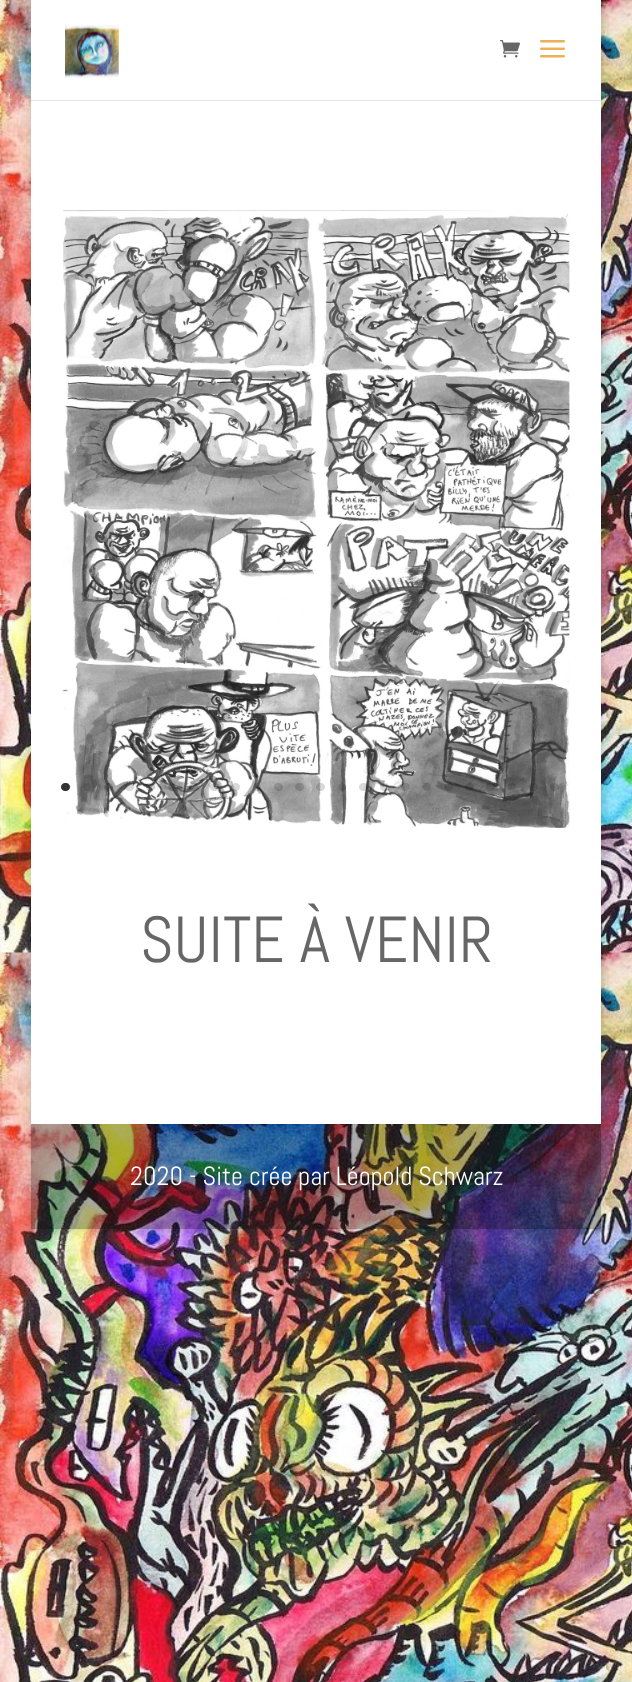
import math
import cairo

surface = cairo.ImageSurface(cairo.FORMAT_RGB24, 632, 1682)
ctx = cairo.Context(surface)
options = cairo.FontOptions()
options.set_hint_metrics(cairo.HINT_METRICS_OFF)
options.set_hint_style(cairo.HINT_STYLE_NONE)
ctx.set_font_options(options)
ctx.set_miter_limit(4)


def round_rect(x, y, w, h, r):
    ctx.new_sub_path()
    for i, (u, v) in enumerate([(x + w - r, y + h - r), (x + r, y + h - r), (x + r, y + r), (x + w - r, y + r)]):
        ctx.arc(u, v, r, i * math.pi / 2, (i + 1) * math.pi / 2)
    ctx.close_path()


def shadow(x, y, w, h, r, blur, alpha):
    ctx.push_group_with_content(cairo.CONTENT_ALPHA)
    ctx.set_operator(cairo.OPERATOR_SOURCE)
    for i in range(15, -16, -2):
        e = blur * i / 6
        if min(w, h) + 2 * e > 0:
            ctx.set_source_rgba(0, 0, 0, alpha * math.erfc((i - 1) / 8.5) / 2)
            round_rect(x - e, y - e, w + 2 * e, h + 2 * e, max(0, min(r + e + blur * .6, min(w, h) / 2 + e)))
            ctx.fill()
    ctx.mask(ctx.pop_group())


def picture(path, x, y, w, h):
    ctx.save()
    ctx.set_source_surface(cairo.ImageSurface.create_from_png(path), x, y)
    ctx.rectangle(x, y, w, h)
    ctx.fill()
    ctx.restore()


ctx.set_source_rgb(1, 1, 1)
ctx.paint()
picture("img1.png", 0, 0, 632, 1682)
ctx.save()
ctx.set_fill_rule(cairo.FILL_RULE_EVEN_ODD)
ctx.new_path()
ctx.move_to(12, 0)
ctx.line_to(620, 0)
ctx.line_to(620, 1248)
ctx.line_to(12, 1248)
ctx.close_path()
ctx.move_to(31, 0)
ctx.line_to(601, 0)
ctx.line_to(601, 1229)
ctx.line_to(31, 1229)
ctx.close_path()
ctx.clip()
ctx.set_source_rgb(0, 0, 0)
shadow(31, 0, 570, 1229, 0, 6, 0.2)
ctx.restore()
ctx.set_source_rgb(0.902, 0.902, 0.902)
ctx.new_path()
ctx.move_to(31, 1)
ctx.line_to(31, 101)
ctx.line_to(601, 101)
ctx.line_to(601, 100)
ctx.line_to(31, 100)
ctx.close_path()
ctx.fill()
ctx.set_source_rgb(1, 1, 1)
ctx.rectangle(31, 0, 570, 100)
ctx.fill()
picture("img2.png", 65, 25, 54, 53)
picture("img3.png", 500, 40, 20, 18)
picture("img4.png", 540, 40, 25, 18)
ctx.rectangle(31, 101, 570, 1023)
ctx.fill()
picture("img5.png", 63, 210, 507, 618)
ctx.set_source_rgb(0.2, 0.2, 0.2)
round_rect(61, 783, 9, 8, 4)
ctx.fill()
ctx.set_source_rgba(0, 0, 0, 0.15)
ctx.arc(87, 787, 4, 0, 2 * math.pi)
ctx.fill()
round_rect(104, 783, 9, 8, 4)
ctx.fill()
round_rect(125, 783, 9, 8, 4)
ctx.fill()
round_rect(146, 783, 9, 8, 4)
ctx.fill()
ctx.arc(172, 787, 4, 0, 2 * math.pi)
ctx.fill()
round_rect(189, 783, 9, 8, 4)
ctx.fill()
round_rect(210, 783, 9, 8, 4)
ctx.fill()
round_rect(231, 783, 9, 8, 4)
ctx.fill()
ctx.arc(257, 787, 4, 0, 2 * math.pi)
ctx.fill()
round_rect(274, 783, 9, 8, 4)
ctx.fill()
round_rect(295, 783, 9, 8, 4)
ctx.fill()
round_rect(316, 783, 9, 8, 4)
ctx.fill()
ctx.arc(342, 787, 4, 0, 2 * math.pi)
ctx.fill()
round_rect(359, 783, 9, 8, 4)
ctx.fill()
round_rect(380, 783, 9, 8, 4)
ctx.fill()
round_rect(401, 783, 9, 8, 4)
ctx.fill()
ctx.arc(427, 787, 4, 0, 2 * math.pi)
ctx.fill()
round_rect(444, 783, 9, 8, 4)
ctx.fill()
round_rect(465, 783, 9, 8, 4)
ctx.fill()
round_rect(486, 783, 9, 8, 4)
ctx.fill()
ctx.arc(512, 787, 4, 0, 2 * math.pi)
ctx.fill()
round_rect(529, 783, 9, 8, 4)
ctx.fill()
round_rect(550, 783, 9, 8, 4)
ctx.fill()
ctx.select_font_face("Abel")
ctx.set_font_size(65)
ctx.set_source_rgb(0.4, 0.4, 0.4)
ctx.move_to(140, 962)
ctx.show_text("SUITE À VENIR")
ctx.set_source_rgba(0, 0, 0, 0.32)
ctx.rectangle(31, 1124, 570, 105)
ctx.fill()
ctx.set_font_size(26.25)
ctx.set_source_rgb(1, 1, 1)
ctx.move_to(130, 1185)
ctx.show_text("2020 - Site crée par Léopold Schwarz")
surface.write_to_png("page.png")
